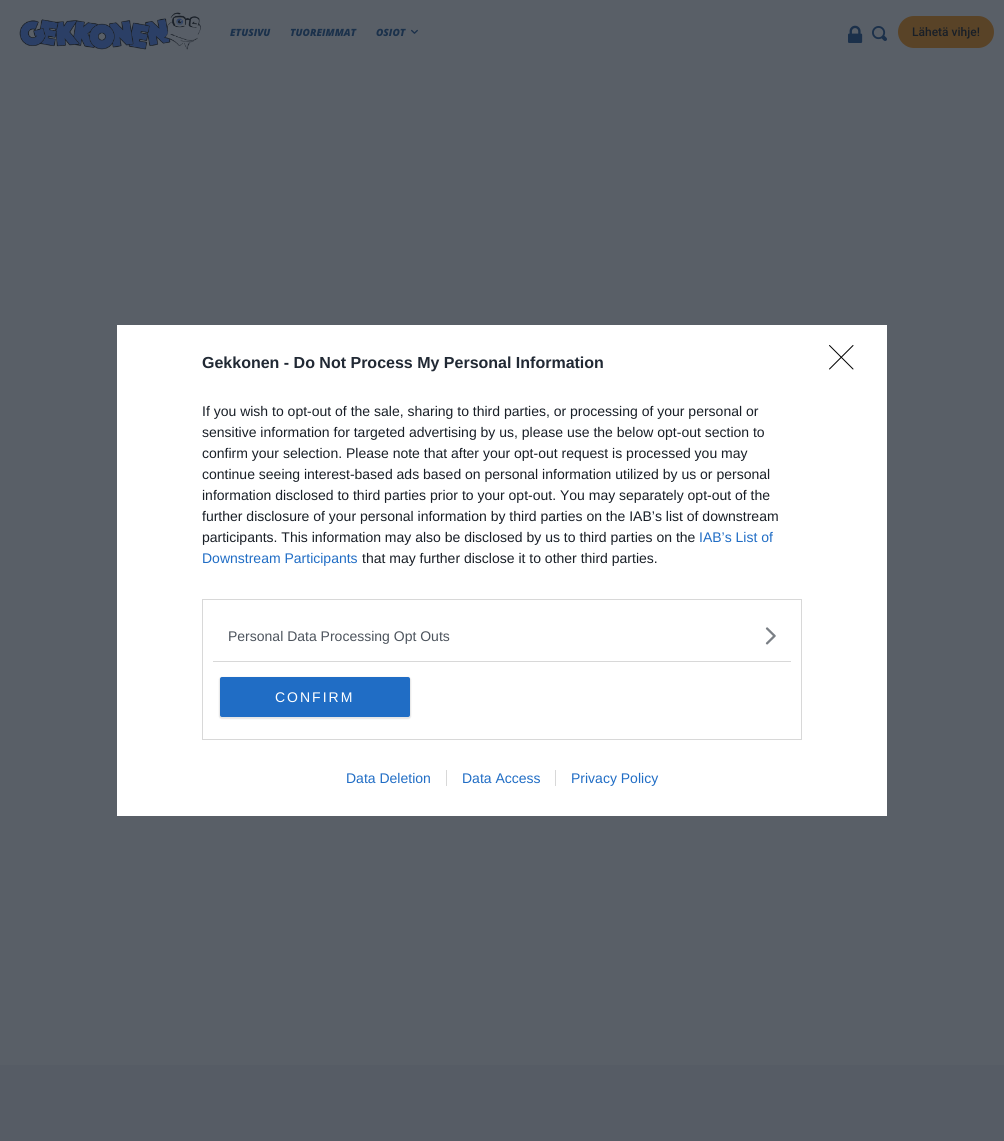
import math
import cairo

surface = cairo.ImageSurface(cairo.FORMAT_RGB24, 1004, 1141)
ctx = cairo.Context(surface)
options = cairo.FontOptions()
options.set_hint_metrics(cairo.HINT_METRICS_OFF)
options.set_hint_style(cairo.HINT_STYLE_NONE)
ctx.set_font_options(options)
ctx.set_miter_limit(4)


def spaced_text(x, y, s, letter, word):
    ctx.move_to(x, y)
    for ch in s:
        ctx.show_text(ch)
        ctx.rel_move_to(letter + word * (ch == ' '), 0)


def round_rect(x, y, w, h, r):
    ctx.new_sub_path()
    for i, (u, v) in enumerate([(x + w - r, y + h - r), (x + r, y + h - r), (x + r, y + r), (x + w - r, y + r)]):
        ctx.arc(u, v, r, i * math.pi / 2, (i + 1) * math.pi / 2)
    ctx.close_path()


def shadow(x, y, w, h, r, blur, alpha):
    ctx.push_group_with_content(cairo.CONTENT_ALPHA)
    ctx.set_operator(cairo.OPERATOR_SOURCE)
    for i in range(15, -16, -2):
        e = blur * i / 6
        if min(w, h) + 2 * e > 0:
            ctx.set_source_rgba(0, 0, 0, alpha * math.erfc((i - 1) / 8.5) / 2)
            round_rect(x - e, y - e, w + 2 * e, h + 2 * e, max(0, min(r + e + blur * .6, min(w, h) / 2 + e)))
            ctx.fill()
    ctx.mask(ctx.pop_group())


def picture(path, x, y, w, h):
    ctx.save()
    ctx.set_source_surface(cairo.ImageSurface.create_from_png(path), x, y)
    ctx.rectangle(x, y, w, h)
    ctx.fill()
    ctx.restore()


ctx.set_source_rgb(0.337, 0.361, 0.396)
ctx.paint()
ctx.set_source_rgb(0.349, 0.373, 0.404)
ctx.rectangle(0, 0, 1004, 1065)
ctx.fill()
picture("img1.png", 19, 12, 182, 38)
ctx.select_font_face("Open Sans ExtraBold", cairo.FONT_SLANT_ITALIC)
ctx.set_font_size(10)
ctx.set_source_rgb(0.106, 0.192, 0.294)
ctx.move_to(230, 36)
ctx.show_text("ETUSIVU")
ctx.move_to(290, 36)
ctx.show_text("TUOREIMMAT")
ctx.move_to(376, 36)
ctx.show_text("OSIOT")
picture("img2.png", 411, 29, 7, 5)
picture("img3.png", 848, 25, 15, 18)
picture("img4.png", 872, 26, 15, 15)
ctx.set_source_rgb(0.349, 0.263, 0.153)
round_rect(898, 16, 96, 32, 16)
ctx.fill()
ctx.select_font_face("Roboto Medium")
ctx.set_font_size(12)
ctx.set_source_rgb(0.098, 0.122, 0.153)
ctx.move_to(912, 36)
ctx.show_text("Lähetä vihje!")
ctx.set_source_rgb(1, 1, 1)
ctx.rectangle(117, 325, 770, 491)
ctx.fill()
ctx.select_font_face("Liberation Sans", cairo.FONT_SLANT_NORMAL, cairo.FONT_WEIGHT_BOLD)
ctx.set_font_size(16)
ctx.set_source_rgb(0.129, 0.161, 0.204)
ctx.move_to(202, 368)
ctx.show_text("Gekkonen - Do Not Process My Personal Information")
ctx.select_font_face("Liberation Sans")
ctx.set_font_size(14)
ctx.set_source_rgb(0.098, 0.122, 0.153)
ctx.move_to(202, 416)
ctx.show_text("If you wish to opt-out of the sale, sharing to third parties, or processing of your personal or")
ctx.move_to(202, 437)
ctx.show_text("sensitive information for targeted advertising by us, please use the below opt-out section to")
ctx.move_to(202, 458)
ctx.show_text("confirm your selection. Please note that after your opt-out request is processed you may")
ctx.move_to(202, 479)
ctx.show_text("continue seeing interest-based ads based on personal information utilized by us or personal")
ctx.move_to(202, 500)
ctx.show_text("information disclosed to third parties prior to your opt-out. You may separately opt-out of the")
ctx.move_to(202, 521)
ctx.show_text("further disclosure of your personal information by third parties on the IAB’s list of downstream")
ctx.move_to(202, 542)
ctx.show_text("participants. This information may also be disclosed by us to third parties on the")
ctx.set_source_rgb(0.125, 0.427, 0.773)
ctx.move_to(699, 542)
ctx.show_text("IAB’s List of")
ctx.move_to(202, 563)
ctx.show_text("Downstream Participants")
ctx.set_source_rgb(0.098, 0.122, 0.153)
ctx.move_to(362, 563)
ctx.show_text("that may further disclose it to other third parties.")
ctx.rectangle(202.5, 599.5, 599, 140)
ctx.set_source_rgb(0.847, 0.847, 0.847)
ctx.set_line_width(1)
ctx.stroke()
ctx.rectangle(213, 661, 578, 1)
ctx.fill()
ctx.set_source_rgb(0.302, 0.329, 0.365)
ctx.move_to(228, 641)
ctx.show_text("Personal Data Processing Opt Outs")
picture("img5.png", 765, 627, 11, 18)
ctx.set_source_rgb(0, 0, 0)
shadow(219, 677, 192, 42, 3, 0.5, 0.1)
ctx.set_source_rgb(0.125, 0.427, 0.773)
round_rect(220, 677, 190, 40, 2)
ctx.fill()
ctx.set_source_rgb(1, 1, 1)
spaced_text(275, 702, "CONFIRM", 2, 0)
ctx.new_path()
ctx.move_to(829.5, 345.5)
ctx.line_to(853, 369)
ctx.move_to(853, 345.5)
ctx.line_to(829.5, 369)
ctx.set_source_rgb(0, 0, 0)
ctx.set_line_cap(cairo.LINE_CAP_ROUND)
ctx.set_line_join(cairo.LINE_JOIN_ROUND)
ctx.stroke()
ctx.set_source_rgb(0.125, 0.427, 0.773)
ctx.move_to(346, 783)
ctx.show_text("Data Deletion")
ctx.move_to(462, 783)
ctx.show_text("Data Access")
ctx.set_source_rgb(0.847, 0.847, 0.847)
ctx.rectangle(446, 770, 1, 16)
ctx.fill()
ctx.set_source_rgb(0.125, 0.427, 0.773)
ctx.move_to(571, 783)
ctx.show_text("Privacy Policy")
ctx.set_source_rgb(0.847, 0.847, 0.847)
ctx.rectangle(555, 770, 1, 16)
ctx.fill()
surface.write_to_png("page.png")
